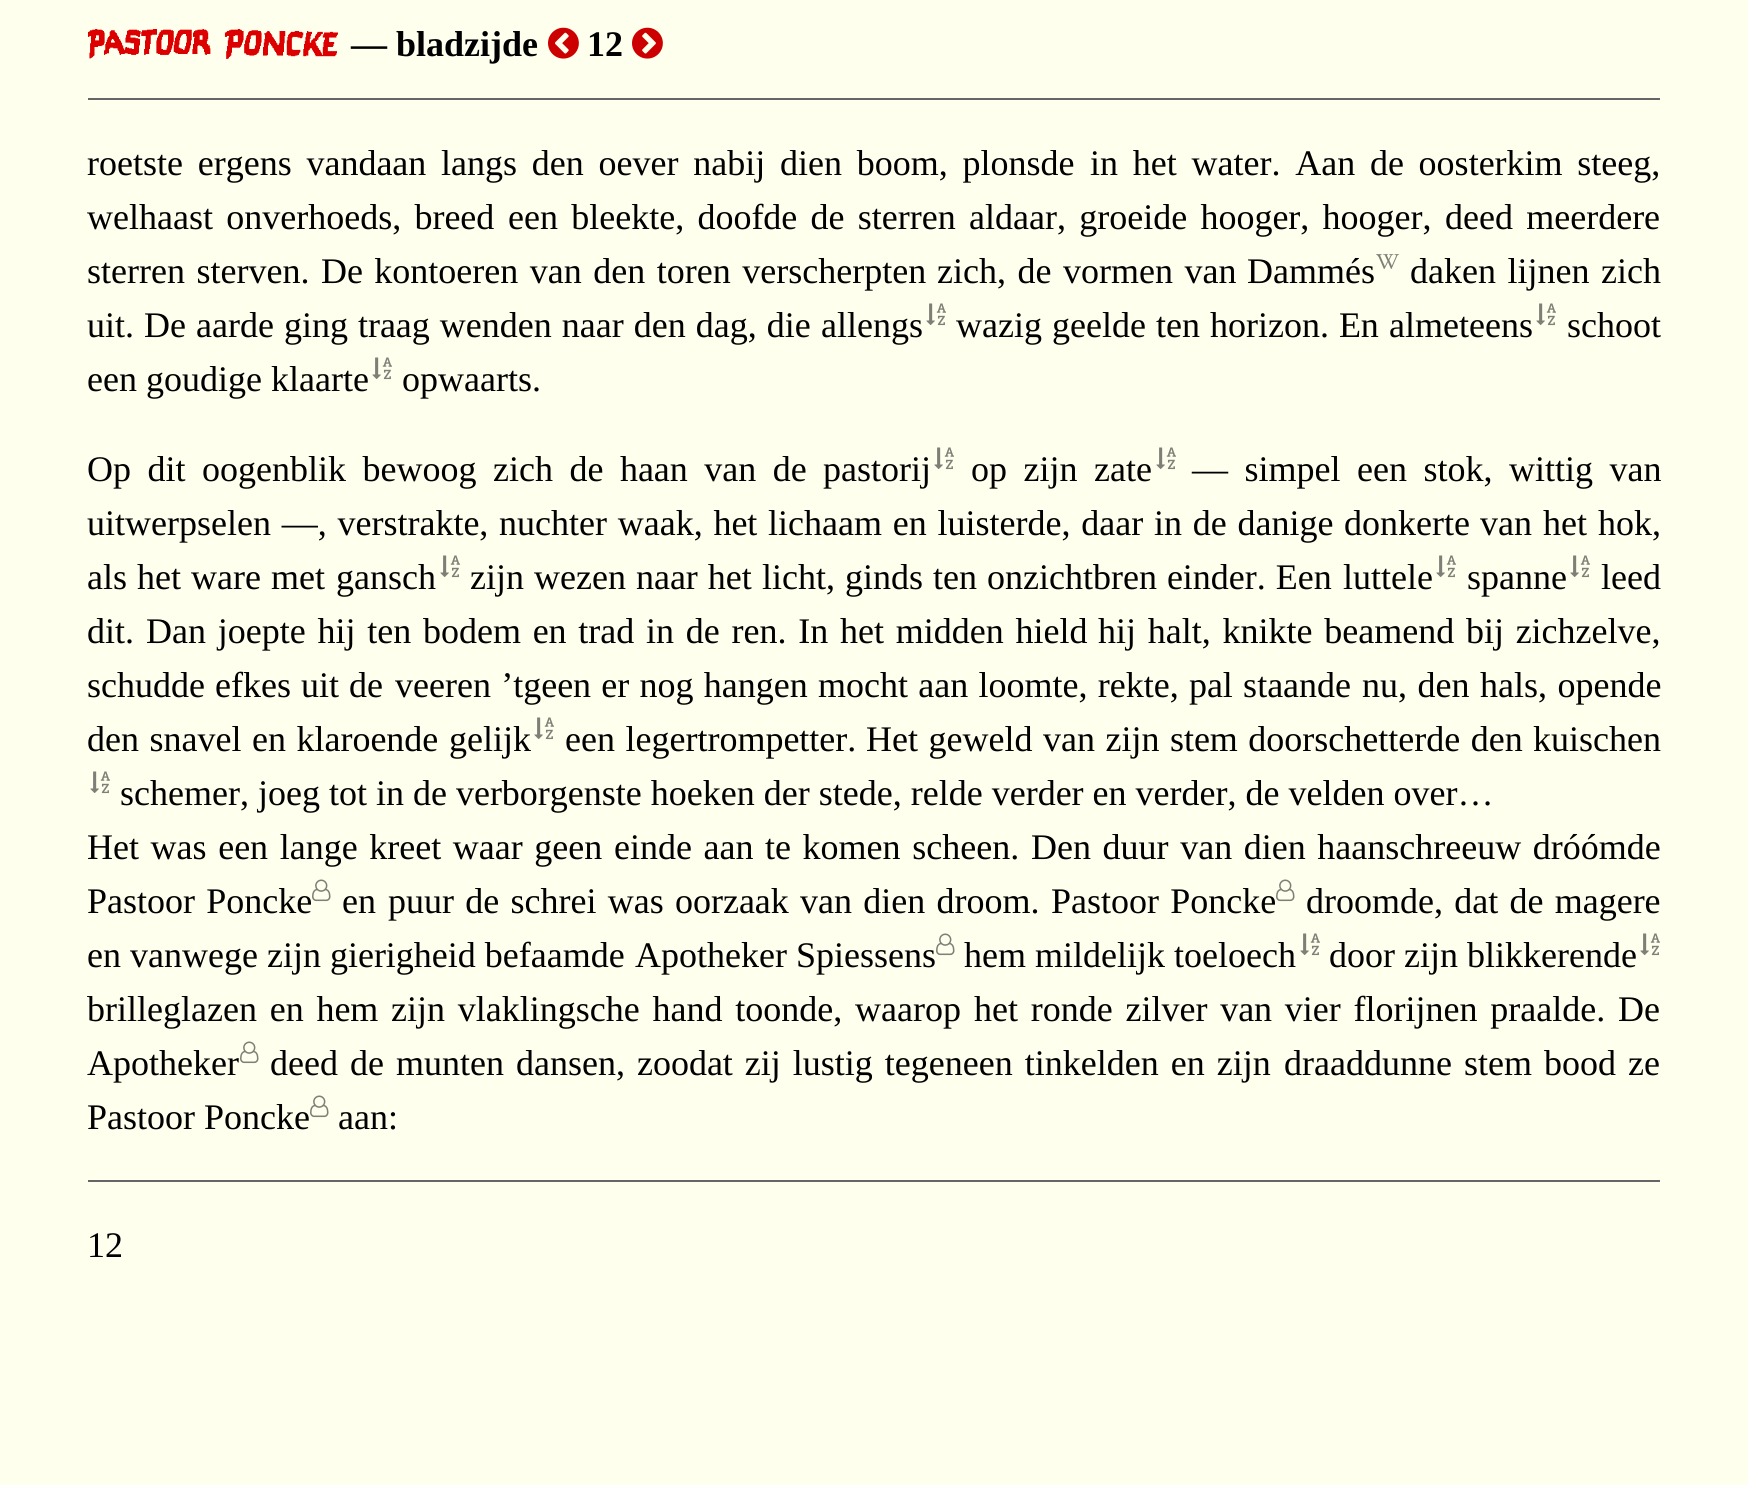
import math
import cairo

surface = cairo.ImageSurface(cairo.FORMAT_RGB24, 1748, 1485)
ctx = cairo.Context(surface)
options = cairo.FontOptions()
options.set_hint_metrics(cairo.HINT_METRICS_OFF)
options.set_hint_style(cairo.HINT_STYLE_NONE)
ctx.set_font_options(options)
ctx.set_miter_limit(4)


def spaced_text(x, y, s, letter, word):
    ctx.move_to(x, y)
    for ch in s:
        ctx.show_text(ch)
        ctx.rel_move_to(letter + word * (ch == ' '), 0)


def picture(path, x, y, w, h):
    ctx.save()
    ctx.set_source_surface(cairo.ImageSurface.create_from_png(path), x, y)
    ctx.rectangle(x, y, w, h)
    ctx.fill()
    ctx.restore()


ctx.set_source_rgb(1, 1, 0.933)
ctx.paint()
ctx.set_source_rgb(0.4, 0.4, 0.4)
ctx.rectangle(88, 98, 1572, 2)
ctx.fill()
picture("img1.png", 88, 29, 250, 30)
ctx.select_font_face("Liberation Serif", cairo.FONT_SLANT_NORMAL, cairo.FONT_WEIGHT_BOLD)
ctx.set_font_size(36)
ctx.set_source_rgb(0, 0, 0)
ctx.move_to(351, 56)
ctx.show_text("— bladzijde")
picture("img2.png", 548, 27, 31, 32)
ctx.move_to(587, 56)
ctx.show_text("12")
picture("img3.png", 632, 27, 31, 32)
ctx.select_font_face("Liberation Serif")
spaced_text(87, 175, "roetste ergens vandaan langs den oever nabij dien boom, plonsde", 0, 5.75)
spaced_text(1090, 175, "in het water. Aan de oosterkim steeg,", 0, 5.75)
spaced_text(87, 229, "welhaast onverhoeds, breed", 0, 4.25)
spaced_text(508, 229, "een bleekte, doofde de sterren aldaar, groeide hooger, hooger,", 0, 4.25)
spaced_text(1445, 229, "deed meerdere", 0, 4.25)
spaced_text(87, 283, "sterren sterven. De kontoeren van den toren verscherpten", 0, 2.5)
spaced_text(937, 283, "zich, de vormen van", 0, 2.5)
ctx.move_to(1247, 283)
ctx.show_text("Dammés")
picture("img4.png", 1376, 254, 24, 15)
spaced_text(1410, 283, "daken lijnen zich", 0, 2.5)
ctx.move_to(87, 337)
ctx.show_text("uit.")
spaced_text(144, 337, "De aarde ging traag wenden naar den dag, die", 0, 1)
ctx.move_to(821, 337)
ctx.show_text("allengs")
picture("img5.png", 926, 303, 20, 23)
ctx.move_to(956, 337)
ctx.show_text("wazig")
spaced_text(1052, 337, "geelde ten horizon. En", 0, 1)
ctx.move_to(1389, 337)
ctx.show_text("almeteens")
picture("img5.png", 1536, 303, 20, 23)
ctx.move_to(1567, 337)
ctx.show_text("schoot")
ctx.move_to(87, 391)
ctx.show_text("een goudige klaarte")
picture("img5.png", 372, 357, 20, 23)
ctx.move_to(402, 391)
ctx.show_text("opwaarts.")
spaced_text(87, 481, "Op dit oogenblik bewoog zich de haan van de", 0, 7.5)
ctx.move_to(823, 481)
ctx.show_text("pastorij")
picture("img5.png", 934, 447, 20, 23)
spaced_text(971, 481, "op zijn", 0, 7.5)
ctx.move_to(1094, 481)
ctx.show_text("zate")
picture("img5.png", 1156, 447, 20, 23)
spaced_text(1192, 481, "— simpel een stok, wittig van", 0, 7.5)
spaced_text(87, 535, "uitwerpselen —, verstrakte,", 0, 1.75)
spaced_text(499, 535, "nuchter waak, het lichaam en luisterde, daar in de danige donkerte", 0, 1.75)
spaced_text(1480, 535, "van het hok,", 0, 2)
spaced_text(87, 589, "als het ware met", 0, 1)
ctx.move_to(336, 589)
ctx.show_text("gansch")
picture("img5.png", 440, 555, 20, 23)
spaced_text(470, 589, "zijn wezen naar het", 0, 1)
spaced_text(762, 589, "licht, ginds ten onzichtbren einder. Een", 0, 1)
ctx.move_to(1343, 589)
ctx.show_text("luttele")
picture("img5.png", 1436, 555, 20, 23)
picture("img5.png", 1570, 555, 20, 23)
ctx.move_to(1467, 589)
ctx.show_text("spanne")
ctx.move_to(1601, 589)
ctx.show_text("leed")
ctx.move_to(87, 643)
ctx.show_text("dit.")
spaced_text(146, 643, "Dan joepte hij ten bodem en trad in de ren. In het midden hield", 0, 2.75)
spaced_text(1098, 643, "hij halt, knikte beamend bij zichzelve,", 0, 2.75)
spaced_text(87, 697, "schudde efkes uit de", 0, 1)
spaced_text(395, 697, "veeren ’tgeen er nog hangen mocht aan loomte, rekte, pal staande", 0, 1.25)
spaced_text(1362, 697, "nu, den hals, opende", 0, 1.5)
spaced_text(87, 751, "den snavel en klaroende", 0, 1.5)
ctx.move_to(449, 751)
ctx.show_text("gelijk")
picture("img5.png", 534, 717, 20, 23)
spaced_text(565, 751, "een legertrompetter.", 0, 1.5)
spaced_text(866, 751, "Het geweld van zijn stem doorschetterde den", 0, 1.5)
ctx.move_to(1533, 751)
ctx.show_text("kuischen")
picture("img5.png", 90, 771, 20, 23)
ctx.move_to(120, 805)
ctx.show_text("schemer, joeg tot in de verborgenste hoeken der stede, relde verder en verder, de velden over…")
spaced_text(87, 859, "Het was een lange kreet waar geen einde aan te komen scheen.", 0, 2.6)
spaced_text(1031, 859, "Den duur van dien haanschreeuw dróómde", 0, 2.6)
spaced_text(87, 913, "Pastoor Poncke", 0, 2.25)
picture("img6.png", 312, 879, 19, 23)
ctx.move_to(342, 913)
ctx.show_text("en")
spaced_text(388, 913, "puur de schrei was oorzaak van dien droom.", 0, 2.25)
spaced_text(1051, 913, "Pastoor Poncke", 0, 2.25)
picture("img6.png", 1276, 879, 19, 23)
spaced_text(1306, 913, "droomde, dat de magere", 0, 2.25)
ctx.move_to(87, 967)
ctx.show_text("en vanwege zijn gierigheid befaamde")
ctx.move_to(635, 967)
ctx.show_text("Apotheker Spiessens")
picture("img6.png", 936, 933, 19, 23)
ctx.move_to(964, 967)
ctx.show_text("hem mildelijk")
ctx.move_to(1174, 967)
ctx.show_text("toeloech")
picture("img5.png", 1300, 933, 20, 23)
ctx.move_to(1329, 967)
ctx.show_text("door zijn")
ctx.move_to(1467, 967)
ctx.show_text("blikkerende")
picture("img5.png", 1640, 933, 20, 23)
spaced_text(87, 1021, "brilleglazen en hem zijn vlaklingsche hand toonde, waarop", 0, 3.75)
spaced_text(974, 1021, "het ronde zilver van vier florijnen praalde. De", 0, 3.75)
ctx.move_to(87, 1075)
ctx.show_text("Apotheker")
picture("img6.png", 240, 1041, 19, 23)
ctx.move_to(270, 1075)
ctx.show_text("deed")
spaced_text(350, 1075, "de munten dansen, zoodat zij lustig tegeneen tinkelden en zijn", 0, 3)
spaced_text(1284, 1075, "draaddunne stem bood ze", 0, 3)
ctx.move_to(87, 1129)
ctx.show_text("Pastoor Poncke")
picture("img6.png", 310, 1095, 19, 23)
ctx.move_to(338, 1129)
ctx.show_text("aan:")
ctx.set_source_rgb(0.4, 0.4, 0.4)
ctx.rectangle(88, 1180, 1572, 2)
ctx.fill()
ctx.set_source_rgb(0, 0, 0)
ctx.move_to(87, 1257)
ctx.show_text("12")
surface.write_to_png("page.png")
